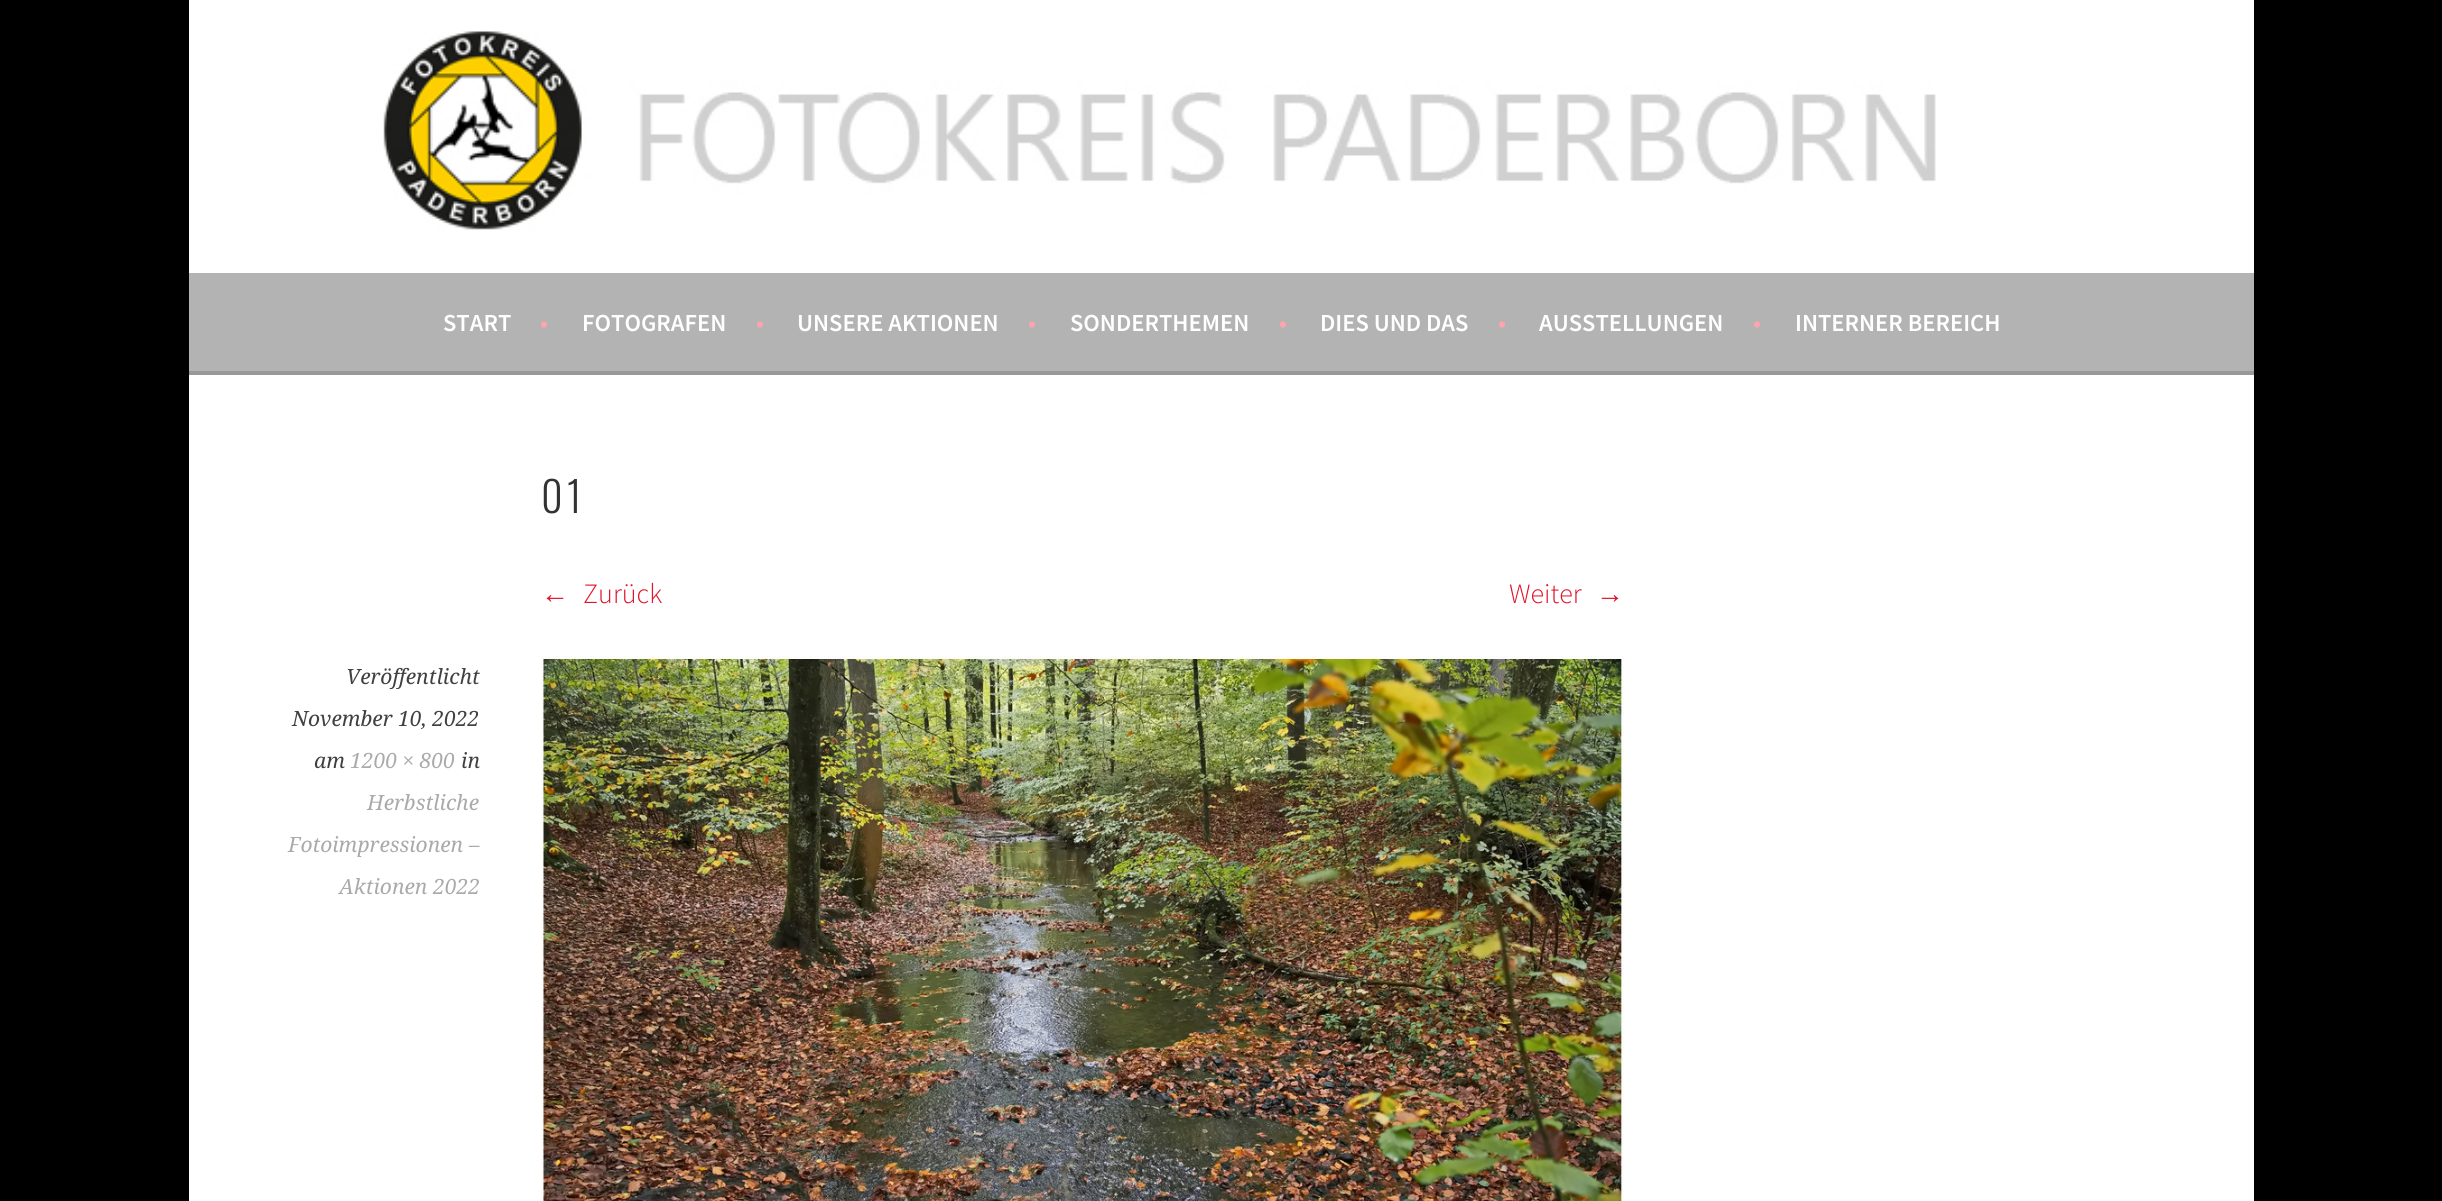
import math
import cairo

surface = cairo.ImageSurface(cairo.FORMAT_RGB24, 2442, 1201)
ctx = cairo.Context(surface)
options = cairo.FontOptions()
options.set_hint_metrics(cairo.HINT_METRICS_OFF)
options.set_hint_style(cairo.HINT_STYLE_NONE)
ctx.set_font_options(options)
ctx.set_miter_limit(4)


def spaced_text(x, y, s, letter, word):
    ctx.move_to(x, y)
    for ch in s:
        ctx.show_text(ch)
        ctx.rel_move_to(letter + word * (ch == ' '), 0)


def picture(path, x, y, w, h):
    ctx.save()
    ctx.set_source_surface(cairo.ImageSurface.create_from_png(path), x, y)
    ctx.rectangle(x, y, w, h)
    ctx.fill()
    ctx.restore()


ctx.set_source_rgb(0, 0, 0)
ctx.paint()
ctx.set_source_rgb(1, 1, 1)
ctx.rectangle(189, 0, 2065, 273)
ctx.fill()
picture("img1.png", 383, 31, 1553, 199)
ctx.set_source_rgb(0.702, 0.702, 0.702)
ctx.rectangle(189, 273, 2065, 98)
ctx.fill()
ctx.set_source_rgb(0.596, 0.596, 0.596)
ctx.rectangle(189, 371, 2065, 4)
ctx.fill()
ctx.select_font_face("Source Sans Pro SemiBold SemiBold")
ctx.set_font_size(24.5)
ctx.set_source_rgb(1, 1, 1)
ctx.move_to(443, 331)
ctx.show_text("START")
ctx.set_source_rgb(1, 0.643, 0.678)
ctx.move_to(540, 331)
ctx.show_text("•")
ctx.set_source_rgb(1, 1, 1)
ctx.move_to(582, 331)
ctx.show_text("FOTOGRAFEN")
ctx.set_source_rgb(1, 0.643, 0.678)
ctx.move_to(756, 331)
ctx.show_text("•")
ctx.set_source_rgb(1, 1, 1)
ctx.move_to(797, 331)
ctx.show_text("UNSERE AKTIONEN")
ctx.set_source_rgb(1, 0.643, 0.678)
ctx.move_to(1028, 331)
ctx.show_text("•")
ctx.set_source_rgb(1, 1, 1)
ctx.move_to(1070, 331)
ctx.show_text("SONDERTHEMEN")
ctx.set_source_rgb(1, 0.643, 0.678)
ctx.move_to(1279, 331)
ctx.show_text("•")
ctx.set_source_rgb(1, 1, 1)
ctx.move_to(1320, 331)
ctx.show_text("DIES UND DAS")
ctx.set_source_rgb(1, 0.643, 0.678)
ctx.move_to(1498, 331)
ctx.show_text("•")
ctx.set_source_rgb(1, 1, 1)
ctx.move_to(1539, 331)
ctx.show_text("AUSSTELLUNGEN")
ctx.set_source_rgb(1, 0.643, 0.678)
ctx.move_to(1753, 331)
ctx.show_text("•")
ctx.set_source_rgb(1, 1, 1)
ctx.move_to(1795, 331)
ctx.show_text("INTERNER BEREICH")
ctx.rectangle(189, 375, 2065, 826)
ctx.fill()
ctx.select_font_face("Oswald Light")
ctx.set_font_size(42)
ctx.set_source_rgb(0.2, 0.2, 0.2)
spaced_text(541, 513, "01", 4, 0)
ctx.select_font_face("Liberation Sans")
ctx.set_font_size(28)
ctx.set_source_rgb(0.882, 0.071, 0.165)
ctx.move_to(541, 603)
ctx.show_text("←")
ctx.select_font_face("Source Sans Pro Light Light")
ctx.move_to(583, 603)
ctx.show_text("Zurück")
ctx.move_to(1509, 603)
ctx.show_text("Weiter")
ctx.select_font_face("Liberation Sans")
ctx.move_to(1596, 603)
ctx.show_text("→")
ctx.select_font_face("Droid Serif", cairo.FONT_SLANT_ITALIC)
ctx.set_font_size(21)
ctx.set_source_rgb(0.251, 0.251, 0.251)
ctx.move_to(346, 684)
ctx.show_text("Veröffentlicht")
ctx.move_to(292, 726)
ctx.show_text("November 10, 2022")
ctx.move_to(314, 768)
ctx.show_text("am")
ctx.set_source_rgb(0.667, 0.667, 0.667)
ctx.move_to(350, 768)
ctx.show_text("1200 × 800")
ctx.set_source_rgb(0.251, 0.251, 0.251)
ctx.move_to(461, 768)
ctx.show_text("in")
ctx.set_source_rgb(0.667, 0.667, 0.667)
ctx.move_to(367, 810)
ctx.show_text("Herbstliche")
ctx.move_to(288, 852)
ctx.show_text("Fotoimpressionen –")
ctx.move_to(339, 894)
ctx.show_text("Aktionen 2022")
picture("img2.png", 541, 656, 1083, 545)
surface.write_to_png("page.png")
